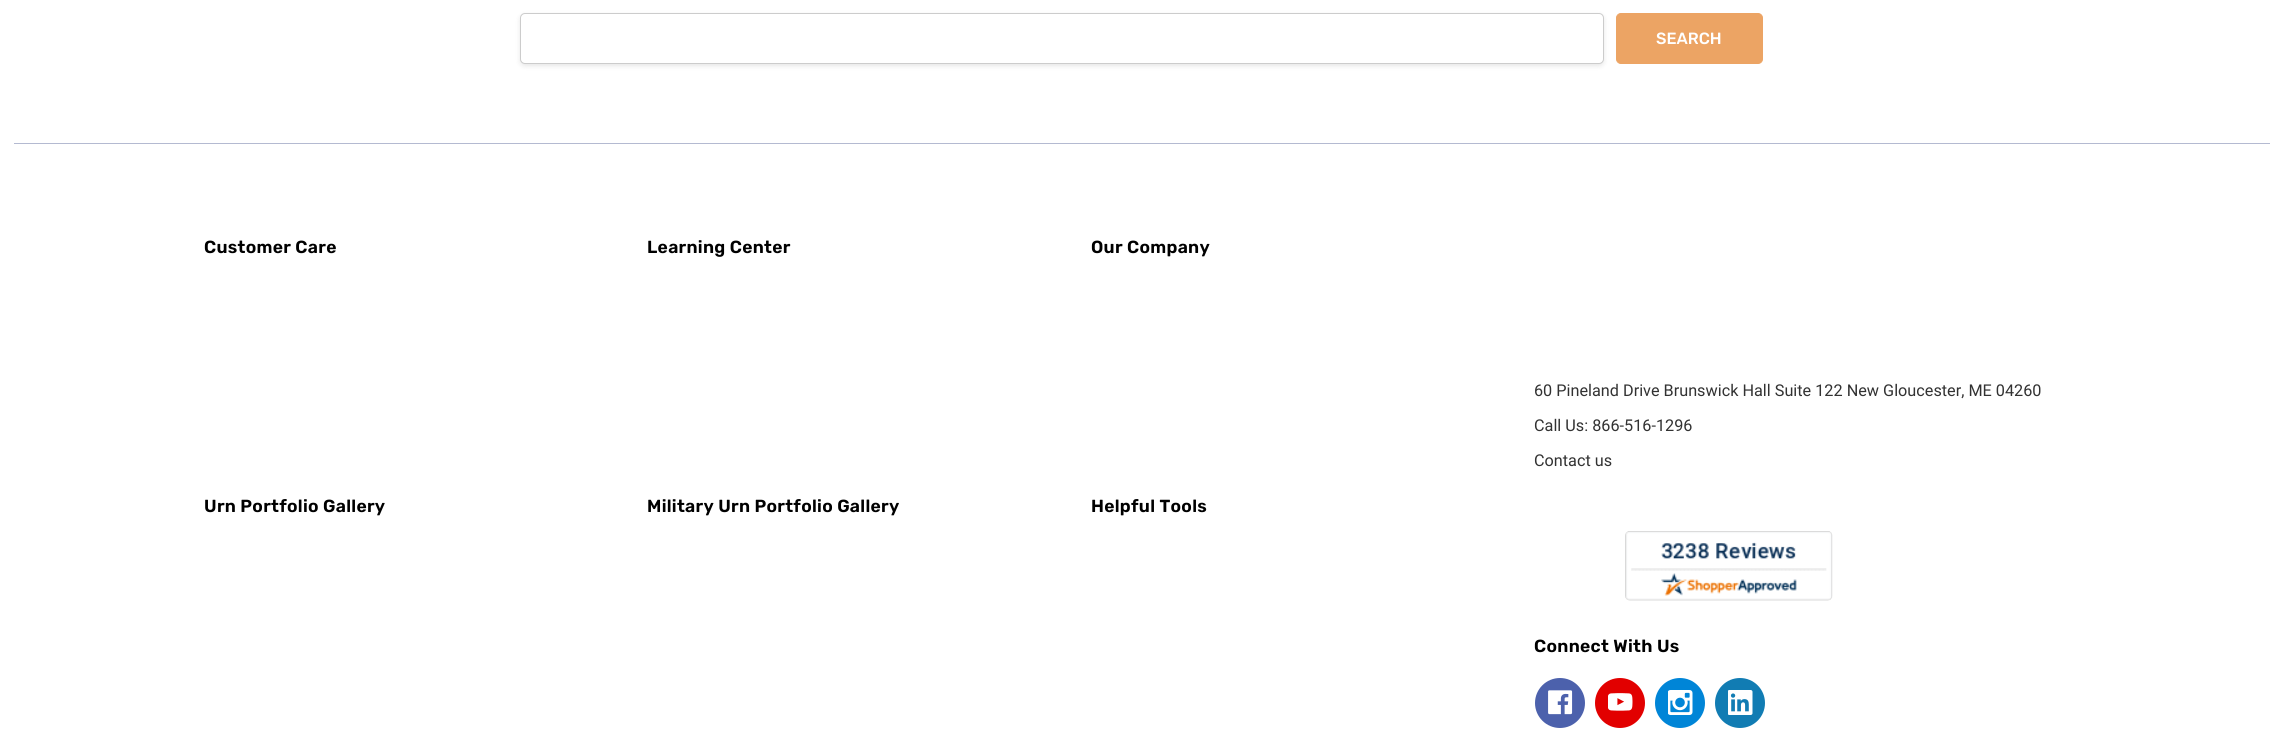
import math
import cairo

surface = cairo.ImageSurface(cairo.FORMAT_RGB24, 2282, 750)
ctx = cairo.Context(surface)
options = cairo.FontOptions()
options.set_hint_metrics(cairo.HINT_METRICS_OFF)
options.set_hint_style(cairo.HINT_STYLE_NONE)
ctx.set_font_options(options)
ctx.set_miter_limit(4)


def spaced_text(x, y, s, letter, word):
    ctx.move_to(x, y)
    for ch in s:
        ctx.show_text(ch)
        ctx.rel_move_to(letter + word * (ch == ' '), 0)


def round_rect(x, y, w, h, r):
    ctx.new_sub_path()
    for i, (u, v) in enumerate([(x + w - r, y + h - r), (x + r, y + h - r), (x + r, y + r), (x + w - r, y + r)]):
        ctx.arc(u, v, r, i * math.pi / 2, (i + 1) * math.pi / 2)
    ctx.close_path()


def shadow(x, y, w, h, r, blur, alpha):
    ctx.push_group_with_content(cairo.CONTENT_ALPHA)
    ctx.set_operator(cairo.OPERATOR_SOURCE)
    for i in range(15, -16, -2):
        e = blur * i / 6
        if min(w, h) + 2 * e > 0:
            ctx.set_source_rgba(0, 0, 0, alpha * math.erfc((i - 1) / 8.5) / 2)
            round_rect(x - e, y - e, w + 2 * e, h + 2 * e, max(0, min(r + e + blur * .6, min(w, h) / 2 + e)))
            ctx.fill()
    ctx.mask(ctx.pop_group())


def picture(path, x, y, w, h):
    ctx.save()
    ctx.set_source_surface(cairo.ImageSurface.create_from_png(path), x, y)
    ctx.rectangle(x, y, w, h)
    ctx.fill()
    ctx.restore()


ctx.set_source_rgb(1, 1, 1)
ctx.paint()
ctx.set_source_rgb(0, 0, 0)
shadow(520, 15, 1084, 51, 5, 2.5, 0.1)
ctx.set_source_rgb(1, 1, 1)
round_rect(520.5, 13.5, 1083, 50, 4.5)
ctx.fill_preserve()
ctx.set_source_rgb(0.8, 0.8, 0.8)
ctx.set_line_width(1)
ctx.stroke()
ctx.set_source_rgb(0.925, 0.643, 0.392)
round_rect(1616.5, 13.5, 146, 50, 4.5)
ctx.fill_preserve()
ctx.stroke()
ctx.select_font_face("Rubik Medium")
ctx.set_font_size(16.25)
ctx.set_source_rgb(1, 1, 1)
ctx.move_to(1656, 44)
ctx.show_text("SEARCH")
ctx.set_source_rgb(0.706, 0.729, 0.82)
ctx.rectangle(14, 143, 2256, 1)
ctx.fill()
ctx.select_font_face("Rubik SemiBold")
ctx.set_font_size(17.5)
ctx.set_source_rgb(0, 0, 0)
spaced_text(204, 253, "Customer Care", 0.3, 0)
spaced_text(647, 253, "Learning Center", 0.3, 0)
spaced_text(1091, 253, "Our Company", 0.3, 0)
spaced_text(204, 512, "Urn Portfolio Gallery", 0.3, 0)
spaced_text(647, 512, "Military Urn Portfolio Gallery", 0.3, 0)
spaced_text(1091, 512, "Helpful Tools", 0.3, 0)
ctx.select_font_face("Roboto")
ctx.set_font_size(16.25)
ctx.set_source_rgb(0.196, 0.196, 0.196)
ctx.move_to(1534, 396)
ctx.show_text("60 Pineland Drive Brunswick Hall Suite 122 New Gloucester, ME 04260")
ctx.move_to(1534, 431)
ctx.show_text("Call Us: 866-516-1296")
ctx.move_to(1534, 466)
ctx.show_text("Contact us")
picture("img1.png", 1625, 531, 208, 70)
ctx.select_font_face("Rubik SemiBold")
ctx.set_font_size(17.5)
ctx.set_source_rgb(0, 0, 0)
spaced_text(1534, 652, "Connect With Us", 0.3, 0)
ctx.set_source_rgb(0.298, 0.38, 0.675)
ctx.new_path()
ctx.arc(1560, 703, 25, 0, 2 * math.pi)
ctx.fill()
picture("img2.png", 1548, 690, 25, 25)
ctx.set_source_rgb(0.886, 0, 0)
ctx.arc(1620, 703, 25, 0, 2 * math.pi)
ctx.fill()
picture("img3.png", 1608, 693, 25, 18)
ctx.set_source_rgb(0, 0.522, 0.843)
ctx.arc(1680, 703, 25, 0, 2 * math.pi)
ctx.fill()
picture("img4.png", 1668, 690, 25, 25)
ctx.set_source_rgb(0.067, 0.486, 0.702)
ctx.arc(1740, 703, 25, 0, 2 * math.pi)
ctx.fill()
picture("img5.png", 1728, 690, 25, 25)
surface.write_to_png("page.png")
